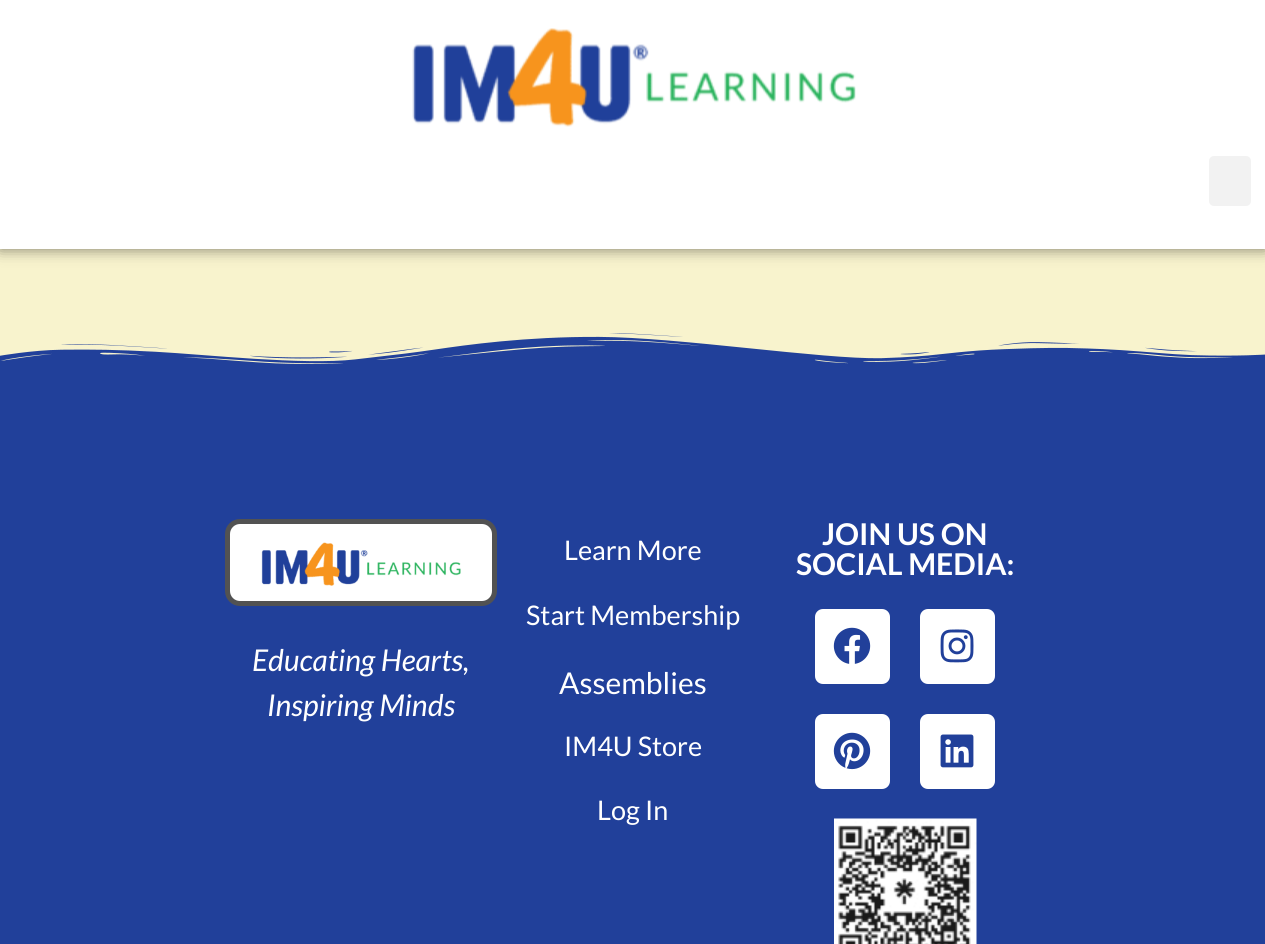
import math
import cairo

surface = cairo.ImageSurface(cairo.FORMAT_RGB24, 1265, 944)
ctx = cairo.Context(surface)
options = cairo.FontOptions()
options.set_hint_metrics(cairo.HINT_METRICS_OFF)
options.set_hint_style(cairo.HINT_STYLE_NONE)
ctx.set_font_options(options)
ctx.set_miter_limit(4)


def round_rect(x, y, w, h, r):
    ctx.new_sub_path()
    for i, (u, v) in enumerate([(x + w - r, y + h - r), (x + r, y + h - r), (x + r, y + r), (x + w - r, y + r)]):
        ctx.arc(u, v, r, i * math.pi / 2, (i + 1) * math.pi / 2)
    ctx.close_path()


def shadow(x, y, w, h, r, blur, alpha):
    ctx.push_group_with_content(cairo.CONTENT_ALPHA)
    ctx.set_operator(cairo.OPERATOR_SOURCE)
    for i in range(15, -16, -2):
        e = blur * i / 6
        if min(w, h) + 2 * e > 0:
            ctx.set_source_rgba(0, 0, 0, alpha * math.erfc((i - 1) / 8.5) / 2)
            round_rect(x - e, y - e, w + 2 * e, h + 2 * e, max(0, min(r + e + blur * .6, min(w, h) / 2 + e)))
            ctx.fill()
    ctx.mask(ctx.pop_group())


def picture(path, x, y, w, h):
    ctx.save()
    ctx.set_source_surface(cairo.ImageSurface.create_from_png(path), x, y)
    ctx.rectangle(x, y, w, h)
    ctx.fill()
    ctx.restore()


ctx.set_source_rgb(0.969, 0.953, 0.804)
ctx.paint()
ctx.set_source_rgb(0, 0, 0)
shadow(0, 0, 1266, 249, 0, 7.5, 0.5)
ctx.set_source_rgb(1, 1, 1)
ctx.rectangle(0, 0, 1265, 249)
ctx.fill()
picture("img1.png", 412, 28, 444, 99)
ctx.set_source_rgb(0.949, 0.949, 0.949)
round_rect(1209, 156, 42, 50, 5)
ctx.fill()
picture("img2.png", 0, 333, 1265, 36)
ctx.set_source_rgb(0.129, 0.251, 0.604)
ctx.rectangle(0, 369, 1265, 575)
ctx.fill()
ctx.set_source_rgb(1, 1, 1)
round_rect(227.5, 521.5, 267, 82, 12.5)
ctx.fill_preserve()
ctx.set_source_rgb(0.322, 0.322, 0.322)
ctx.set_line_width(5)
ctx.stroke()
picture("img3.png", 261, 542, 200, 44)
ctx.select_font_face("Lato", cairo.FONT_SLANT_ITALIC)
ctx.set_font_size(30)
ctx.set_source_rgb(1, 1, 1)
ctx.move_to(252, 671)
ctx.show_text("Educating Hearts,")
ctx.move_to(267, 716)
ctx.show_text("Inspiring Minds")
ctx.select_font_face("Lato")
ctx.set_font_size(27)
ctx.move_to(564, 560)
ctx.show_text("Learn More")
ctx.move_to(526, 625)
ctx.show_text("Start Membership")
ctx.set_font_size(30)
ctx.move_to(559, 694)
ctx.show_text("Assemblies")
ctx.set_font_size(27)
ctx.move_to(564, 756)
ctx.show_text("IM4U Store")
ctx.move_to(597, 820)
ctx.show_text("Log In")
ctx.select_font_face("Lato", cairo.FONT_SLANT_NORMAL, cairo.FONT_WEIGHT_BOLD)
ctx.set_font_size(30)
ctx.move_to(822, 545)
ctx.show_text("JOIN US ON")
ctx.move_to(796, 575)
ctx.show_text("SOCIAL MEDIA:")
round_rect(815, 609, 75, 75, 8)
ctx.fill()
picture("img4.png", 833, 627, 38, 37)
round_rect(920, 609, 75, 75, 8)
ctx.fill()
picture("img5.png", 940, 629, 34, 34)
round_rect(815, 714, 75, 75, 8)
ctx.fill()
picture("img6.png", 833, 732, 38, 38)
round_rect(920, 714, 75, 75, 8)
ctx.fill()
picture("img7.png", 940, 734, 34, 34)
picture("img8.png", 834, 818, 143, 126)
surface.write_to_png("page.png")
